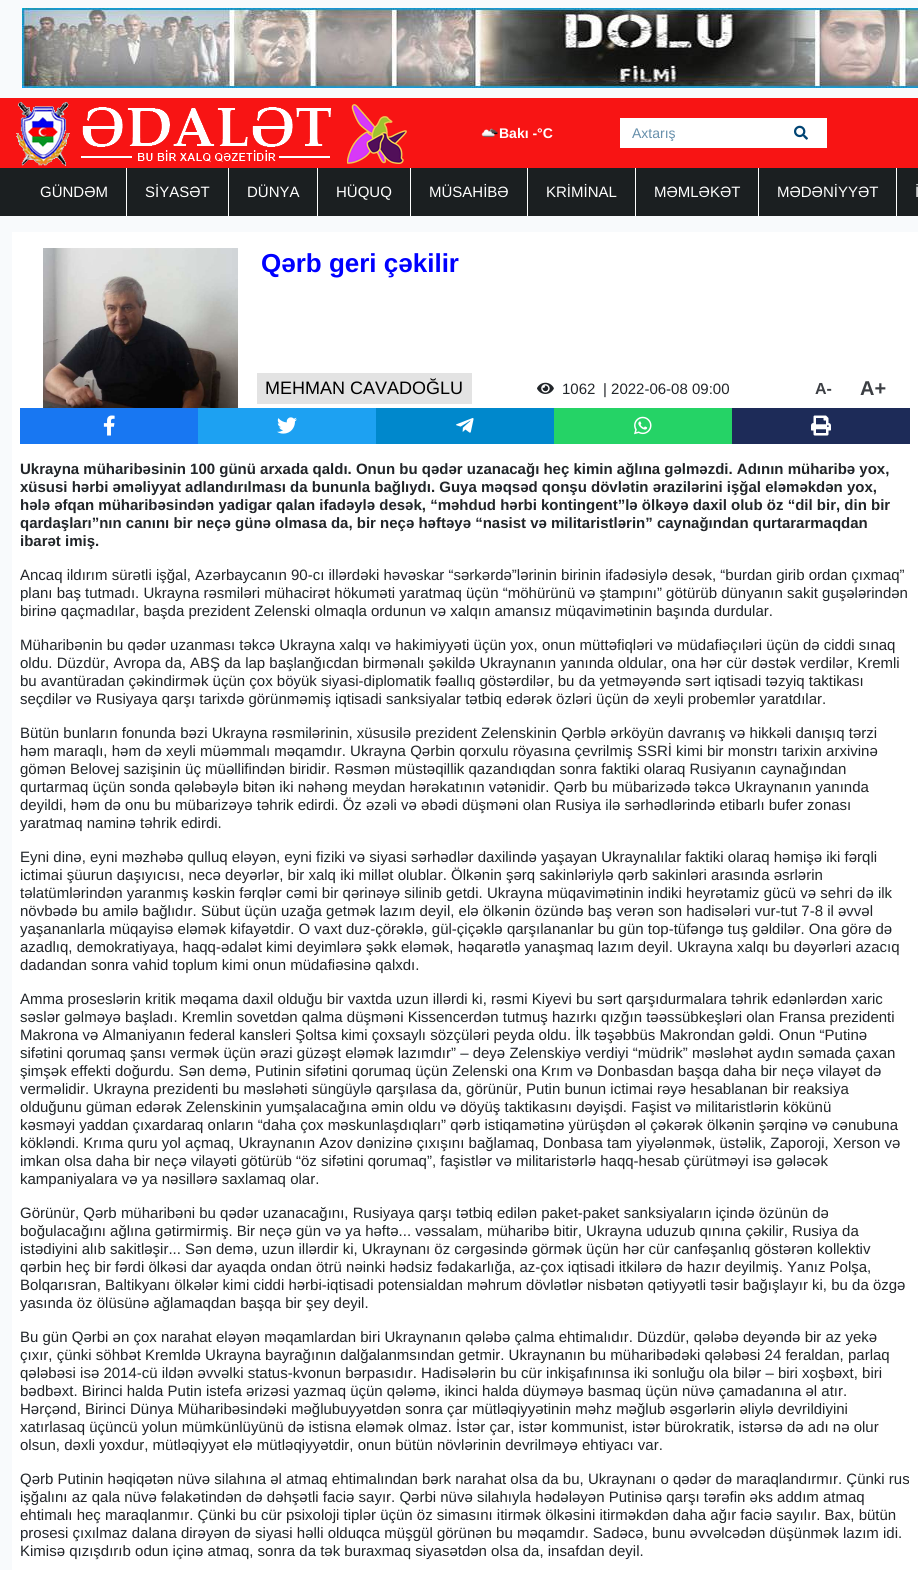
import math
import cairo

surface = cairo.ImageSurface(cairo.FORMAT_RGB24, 918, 1570)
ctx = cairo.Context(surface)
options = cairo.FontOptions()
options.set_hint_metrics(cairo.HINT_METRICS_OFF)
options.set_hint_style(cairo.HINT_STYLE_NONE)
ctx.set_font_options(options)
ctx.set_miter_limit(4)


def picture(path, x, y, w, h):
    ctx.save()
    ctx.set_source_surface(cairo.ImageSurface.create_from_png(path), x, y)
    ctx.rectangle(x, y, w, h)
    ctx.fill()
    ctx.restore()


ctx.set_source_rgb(0.969, 0.98, 0.988)
ctx.paint()
picture("img1.png", 22, 8, 896, 80)
ctx.set_source_rgb(0.969, 0.082, 0.082)
ctx.rectangle(0, 98, 918, 70)
ctx.fill()
picture("img2.png", 16, 102, 391, 64)
picture("img3.png", 481, 128, 18, 9)
ctx.select_font_face("Liberation Sans", cairo.FONT_SLANT_NORMAL, cairo.FONT_WEIGHT_BOLD)
ctx.set_font_size(14)
ctx.set_source_rgb(1, 1, 1)
ctx.move_to(499, 138)
ctx.show_text("Bakı -°C")
ctx.rectangle(620, 118, 207, 30)
ctx.fill()
ctx.select_font_face("Liberation Sans")
ctx.set_source_rgb(0.4, 0.561, 0.671)
ctx.move_to(632, 138)
ctx.show_text("Axtarış")
picture("img4.png", 794, 125, 14, 15)
ctx.set_source_rgb(0.106, 0.122, 0.129)
ctx.rectangle(0, 168, 918, 48)
ctx.fill()
ctx.set_source_rgb(1, 1, 1)
ctx.rectangle(126, 168, 1, 48)
ctx.fill()
ctx.set_font_size(15)
ctx.move_to(40, 197)
ctx.show_text("GÜNDƏM")
ctx.rectangle(228, 168, 1, 48)
ctx.fill()
ctx.move_to(145, 197)
ctx.show_text("SİYASƏT")
ctx.rectangle(317, 168, 1, 48)
ctx.fill()
ctx.move_to(247, 197)
ctx.show_text("DÜNYA")
ctx.rectangle(410, 168, 1, 48)
ctx.fill()
ctx.move_to(336, 197)
ctx.show_text("HÜQUQ")
ctx.rectangle(527, 168, 1, 48)
ctx.fill()
ctx.move_to(429, 197)
ctx.show_text("MÜSAHİBƏ")
ctx.rectangle(635, 168, 1, 48)
ctx.fill()
ctx.move_to(546, 197)
ctx.show_text("KRİMİNAL")
ctx.rectangle(758, 168, 1, 48)
ctx.fill()
ctx.move_to(654, 197)
ctx.show_text("MƏMLƏKƏT")
ctx.rectangle(896, 168, 1, 48)
ctx.fill()
ctx.move_to(777, 197)
ctx.show_text("MƏDƏNİYYƏT")
ctx.move_to(915, 197)
ctx.show_text("İ")
ctx.rectangle(12, 232, 906, 1338)
ctx.fill()
picture("img5.png", 43, 248, 195, 160)
ctx.select_font_face("Liberation Sans", cairo.FONT_SLANT_NORMAL, cairo.FONT_WEIGHT_BOLD)
ctx.set_font_size(26)
ctx.set_source_rgb(0, 0, 1)
ctx.move_to(261, 272)
ctx.show_text("Qərb geri çəkilir")
ctx.set_source_rgb(0.89, 0.89, 0.89)
ctx.rectangle(257, 373, 215, 31)
ctx.fill()
ctx.select_font_face("Liberation Sans")
ctx.set_font_size(18)
ctx.set_source_rgb(0, 0, 0)
ctx.move_to(265, 394)
ctx.show_text("MEHMAN CAVADOĞLU")
picture("img6.png", 537, 382, 17, 12)
ctx.set_font_size(15)
ctx.set_source_rgb(0.129, 0.145, 0.161)
ctx.move_to(562, 394)
ctx.show_text("1062")
ctx.move_to(603, 394)
ctx.show_text("| 2022-06-08 09:00")
ctx.select_font_face("Liberation Sans", cairo.FONT_SLANT_NORMAL, cairo.FONT_WEIGHT_BOLD)
ctx.set_font_size(16)
ctx.set_source_rgb(0.235, 0.247, 0.267)
ctx.move_to(815, 394)
ctx.show_text("A-")
ctx.set_font_size(20)
ctx.move_to(860, 395)
ctx.show_text("A+")
ctx.set_source_rgb(0.094, 0.467, 0.949)
ctx.rectangle(20, 408, 178, 36)
ctx.fill()
picture("img7.png", 103, 415, 12, 21)
ctx.set_source_rgb(0.114, 0.631, 0.949)
ctx.rectangle(198, 408, 178, 36)
ctx.fill()
picture("img8.png", 277, 417, 20, 17)
ctx.set_source_rgb(0, 0.533, 0.8)
ctx.rectangle(376, 408, 178, 36)
ctx.fill()
picture("img9.png", 456, 418, 18, 15)
ctx.set_source_rgb(0.145, 0.827, 0.4)
ctx.rectangle(554, 408, 178, 36)
ctx.fill()
picture("img10.png", 634, 416, 18, 19)
ctx.set_source_rgb(0.114, 0.169, 0.345)
ctx.rectangle(732, 408, 178, 36)
ctx.fill()
picture("img11.png", 811, 415, 20, 21)
ctx.set_font_size(15)
ctx.set_source_rgb(0.129, 0.145, 0.161)
ctx.move_to(20, 474)
ctx.show_text("Ukrayna müharibəsinin 100 günü arxada qaldı. Onun bu qədər uzanacağı heç kimin ağlına gəlməzdi. Adının müharibə yox,")
ctx.move_to(20, 492)
ctx.show_text("xüsusi hərbi əməliyyat adlandırılması da bununla bağlıydı. Guya məqsəd qonşu dövlətin ərazilərini işğal eləməkdən yox,")
ctx.move_to(20, 510)
ctx.show_text("hələ əfqan müharibəsindən yadigar qalan ifadəylə desək, “məhdud hərbi kontingent”lə ölkəyə daxil olub öz “dil bir, din bir")
ctx.move_to(20, 528)
ctx.show_text("qardaşları”nın canını bir neçə günə olmasa da, bir neçə həftəyə “nasist və militaristlərin” caynağından qurtararmaqdan")
ctx.move_to(20, 546)
ctx.show_text("ibarət imiş.")
ctx.select_font_face("Liberation Sans")
ctx.move_to(20, 580)
ctx.show_text("Ancaq ildırım sürətli işğal, Azərbaycanın 90-cı illərdəki həvəskar “sərkərdə”lərinin birinin ifadəsiylə desək, “burdan girib ordan çıxmaq”")
ctx.move_to(20, 598)
ctx.show_text("planı baş tutmadı. Ukrayna rəsmiləri mühacirət hökuməti yaratmaq üçün “möhürünü və ştampını” götürüb dünyanın sakit guşələrindən")
ctx.move_to(20, 616)
ctx.show_text("birinə qaçmadılar, başda prezident Zelenski olmaqla ordunun və xalqın amansız müqavimətinin başında durdular.")
ctx.move_to(20, 650)
ctx.show_text("Müharibənin bu qədər uzanması təkcə Ukrayna xalqı və hakimiyyəti üçün yox, onun müttəfiqləri və müdafiəçıləri üçün də ciddi sınaq")
ctx.move_to(20, 668)
ctx.show_text("oldu. Düzdür, Avropa da, ABŞ da lap başlanğıcdan birmənalı şəkildə Ukraynanın yanında oldular, ona hər cür dəstək verdilər, Kremli")
ctx.move_to(20, 686)
ctx.show_text("bu avantüradan çəkindirmək üçün çox böyük siyasi-diplomatik fəallıq göstərdilər, bu da yetməyəndə sərt iqtisadi təzyiq taktikası")
ctx.move_to(20, 704)
ctx.show_text("seçdilər və Rusiyaya qarşı tarixdə görünməmiş iqtisadi sanksiyalar tətbiq edərək özləri üçün də xeyli probemlər yaratdılar.")
ctx.move_to(20, 738)
ctx.show_text("Bütün bunların fonunda bəzi Ukrayna rəsmilərinin, xüsusilə prezident Zelenskinin Qərblə ərköyün davranış və hikkəli danışıq tərzi")
ctx.move_to(20, 756)
ctx.show_text("həm maraqlı, həm də xeyli müəmmalı məqamdır. Ukrayna Qərbin qorxulu röyasına çevrilmiş SSRİ kimi bir monstrı tarixin arxivinə")
ctx.move_to(20, 774)
ctx.show_text("gömən Belovej sazişinin üç müəllifindən biridir. Rəsmən müstəqillik qazandıqdan sonra faktiki olaraq Rusiyanın caynağından")
ctx.move_to(20, 792)
ctx.show_text("qurtarmaq üçün sonda qələbəylə bitən iki nəhəng meydan hərəkatının vətənidir. Qərb bu mübarizədə təkcə Ukraynanın yanında")
ctx.move_to(20, 810)
ctx.show_text("deyildi, həm də onu bu mübarizəyə təhrik edirdi. Öz əzəli və əbədi düşməni olan Rusiya ilə sərhədlərində etibarlı bufer zonası")
ctx.move_to(20, 828)
ctx.show_text("yaratmaq naminə təhrik edirdi.")
ctx.move_to(20, 862)
ctx.show_text("Eyni dinə, eyni məzhəbə qulluq eləyən, eyni fiziki və siyasi sərhədlər daxilində yaşayan Ukraynalılar faktiki olaraq həmişə iki fərqli")
ctx.move_to(20, 880)
ctx.show_text("ictimai şüurun daşıyıcısı, necə deyərlər, bir xalq iki millət olublar. Ölkənin şərq sakinləriylə qərb sakinləri arasında əsrlərin")
ctx.move_to(20, 898)
ctx.show_text("təlatümlərindən yaranmış kəskin fərqlər cəmi bir qərinəyə silinib getdi. Ukrayna müqavimətinin indiki heyrətamiz gücü və sehri də ilk")
ctx.move_to(20, 916)
ctx.show_text("növbədə bu amilə bağlıdır. Sübut üçün uzağa getmək lazım deyil, elə ölkənin özündə baş verən son hadisələri vur-tut 7-8 il əvvəl")
ctx.move_to(20, 934)
ctx.show_text("yaşananlarla müqayisə eləmək kifayətdir. O vaxt duz-çörəklə, gül-çiçəklə qarşılananlar bu gün top-tüfəngə tuş gəldilər. Ona görə də")
ctx.move_to(20, 952)
ctx.show_text("azadlıq, demokratiyaya, haqq-ədalət kimi deyimlərə şəkk eləmək, həqarətlə yanaşmaq lazım deyil. Ukrayna xalqı bu dəyərləri azacıq")
ctx.move_to(20, 970)
ctx.show_text("dadandan sonra vahid toplum kimi onun müdafiəsinə qalxdı.")
ctx.move_to(20, 1004)
ctx.show_text("Amma proseslərin kritik məqama daxil olduğu bir vaxtda uzun illərdi ki, rəsmi Kiyevi bu sərt qarşıdurmalara təhrik edənlərdən xaric")
ctx.move_to(20, 1022)
ctx.show_text("səslər gəlməyə başladı. Kremlin sovetdən qalma düşməni Kissencerdən tutmuş hazırkı qızğın təəssübkeşləri olan Fransa prezidenti")
ctx.move_to(20, 1040)
ctx.show_text("Makrona və Almaniyanın federal kansleri Şoltsa kimi çoxsaylı sözçüləri peyda oldu. İlk təşəbbüs Makrondan gəldi. Onun “Putinə")
ctx.move_to(20, 1058)
ctx.show_text("sifətini qorumaq şansı vermək üçün ərazi güzəşt eləmək lazımdır” – deyə Zelenskiyə verdiyi “müdrik” məsləhət aydın səmada çaxan")
ctx.move_to(20, 1076)
ctx.show_text("şimşək effekti doğurdu. Sən demə, Putinin sifətini qorumaq üçün Zelenski ona Krım və Donbasdan başqa daha bir neçə vilayət də")
ctx.move_to(20, 1094)
ctx.show_text("verməlidir. Ukrayna prezidenti bu məsləhəti süngüylə qarşılasa da, görünür, Putin bunun ictimai rəyə hesablanan bir reaksiya")
ctx.move_to(20, 1112)
ctx.show_text("olduğunu güman edərək Zelenskinin yumşalacağına əmin oldu və döyüş taktikasını dəyişdi. Faşist və militaristlərin kökünü")
ctx.move_to(20, 1130)
ctx.show_text("kəsməyi yaddan çıxardaraq onların “daha çox məskunlaşdıqları” qərb istiqamətinə yürüşdən əl çəkərək ölkənin şərqinə və cənubuna")
ctx.move_to(20, 1148)
ctx.show_text("kökləndi. Krıma quru yol açmaq, Ukraynanın Azov dənizinə çıxışını bağlamaq, Donbasa tam yiyələnmək, üstəlik, Zaporoji, Xerson və")
ctx.move_to(20, 1166)
ctx.show_text("imkan olsa daha bir neçə vilayəti götürüb “öz sifətini qorumaq”, faşistlər və militaristərlə haqq-hesab çürütməyi isə gələcək")
ctx.move_to(20, 1184)
ctx.show_text("kampaniyalara və ya nəsillərə saxlamaq olar.")
ctx.move_to(20, 1218)
ctx.show_text("Görünür, Qərb müharibəni bu qədər uzanacağını, Rusiyaya qarşı tətbiq edilən paket-paket sanksiyaların içində özünün də")
ctx.move_to(20, 1236)
ctx.show_text("boğulacağını ağlına gətirmirmiş. Bir neçə gün və ya həftə... vəssalam, müharibə bitir, Ukrayna uduzub qınına çəkilir, Rusiya da")
ctx.move_to(20, 1254)
ctx.show_text("istədiyini alıb sakitləşir... Sən demə, uzun illərdir ki, Ukraynanı öz cərgəsində görmək üçün hər cür canfəşanlıq göstərən kollektiv")
ctx.move_to(20, 1272)
ctx.show_text("qərbin heç bir fərdi ölkəsi dar ayaqda ondan ötrü nəinki hədsiz fədakarlığa, az-çox iqtisadi itkilərə də hazır deyilmiş. Yanız Polşa,")
ctx.move_to(20, 1290)
ctx.show_text("Bolqarısran, Baltikyanı ölkələr kimi ciddi hərbi-iqtisadi potensialdan məhrum dövlətlər nisbətən qətiyyətli təsir bağışlayır ki, bu da özgə")
ctx.move_to(20, 1308)
ctx.show_text("yasında öz ölüsünə ağlamaqdan başqa bir şey deyil.")
ctx.move_to(20, 1342)
ctx.show_text("Bu gün Qərbi ən çox narahat eləyən məqamlardan biri Ukraynanın qələbə çalma ehtimalıdır. Düzdür, qələbə deyəndə bir az yekə")
ctx.move_to(20, 1360)
ctx.show_text("çıxır, çünki söhbət Kremldə Ukrayna bayrağının dalğalanmsından getmir. Ukraynanın bu müharibədəki qələbəsi 24 feraldan, parlaq")
ctx.move_to(20, 1378)
ctx.show_text("qələbəsi isə 2014-cü ildən əvvəlki status-kvonun bərpasıdır. Hadisələrin bu cür inkişafınınsa iki sonluğu ola bilər – biri xoşbəxt, biri")
ctx.move_to(20, 1396)
ctx.show_text("bədbəxt. Birinci halda Putin istefa ərizəsi yazmaq üçün qələmə, ikinci halda düyməyə basmaq üçün nüvə çamadanına əl atır.")
ctx.move_to(20, 1414)
ctx.show_text("Hərçənd, Birinci Dünya Müharibəsindəki məğlubuyyətdən sonra çar mütləqiyyətinin məhz məğlub əsgərlərin əliylə devrildiyini")
ctx.move_to(20, 1432)
ctx.show_text("xatırlasaq üçüncü yolun mümkünlüyünü də istisna eləmək olmaz. İstər çar, istər kommunist, istər bürokratik, istərsə də adı nə olur")
ctx.move_to(20, 1450)
ctx.show_text("olsun, dəxli yoxdur, mütləqiyyət elə mütləqiyyətdir, onun bütün növlərinin devrilməyə ehtiyacı var.")
ctx.move_to(20, 1484)
ctx.show_text("Qərb Putinin həqiqətən nüvə silahına əl atmaq ehtimalından bərk narahat olsa da bu, Ukraynanı o qədər də maraqlandırmır. Çünki rus")
ctx.move_to(20, 1502)
ctx.show_text("işğalını az qala nüvə fəlakətindən də dəhşətli faciə sayır. Qərbi nüvə silahıyla hədələyən Putinisə qarşı tərəfin əks addım atmaq")
ctx.move_to(20, 1520)
ctx.show_text("ehtimalı heç maraqlanmır. Çünki bu cür psixoloji tiplər üçün öz simasını itirmək ölkəsini itirməkdən daha ağır faciə sayılır. Bax, bütün")
ctx.move_to(20, 1538)
ctx.show_text("prosesi çıxılmaz dalana dirəyən də siyasi həlli olduqca müşgül görünən bu məqamdır. Sadəcə, bunu əvvəlcədən düşünmək lazım idi.")
ctx.move_to(20, 1556)
ctx.show_text("Kimisə qızışdırıb odun içinə atmaq, sonra da tək buraxmaq siyasətdən olsa da, insafdan deyil.")
surface.write_to_png("page.png")
